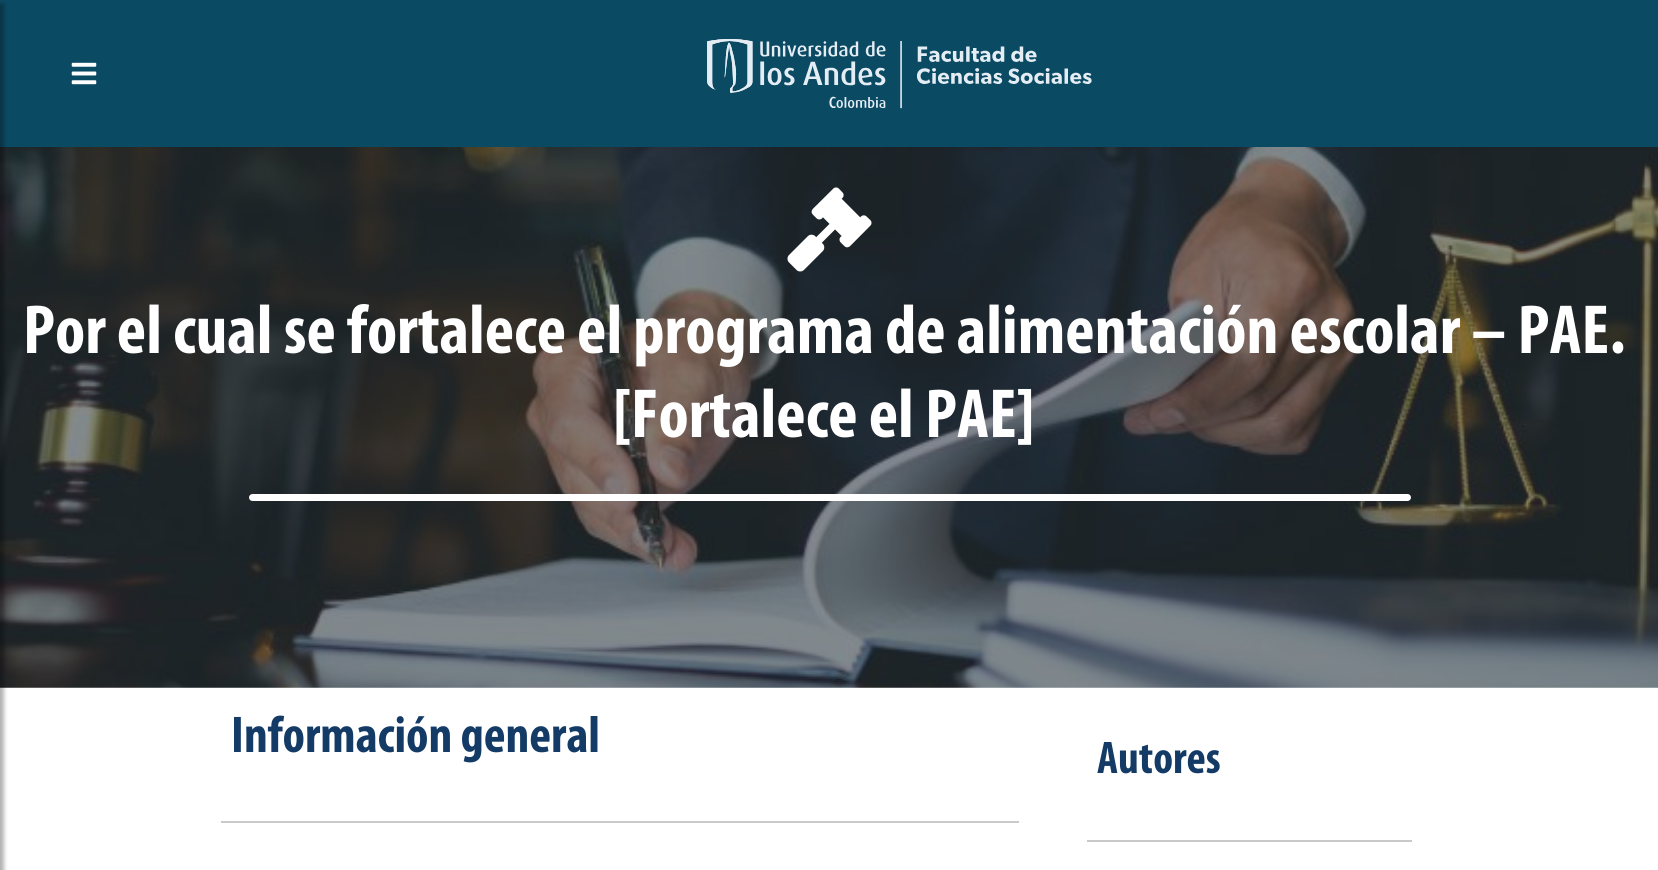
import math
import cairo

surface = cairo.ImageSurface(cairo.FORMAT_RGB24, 1658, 870)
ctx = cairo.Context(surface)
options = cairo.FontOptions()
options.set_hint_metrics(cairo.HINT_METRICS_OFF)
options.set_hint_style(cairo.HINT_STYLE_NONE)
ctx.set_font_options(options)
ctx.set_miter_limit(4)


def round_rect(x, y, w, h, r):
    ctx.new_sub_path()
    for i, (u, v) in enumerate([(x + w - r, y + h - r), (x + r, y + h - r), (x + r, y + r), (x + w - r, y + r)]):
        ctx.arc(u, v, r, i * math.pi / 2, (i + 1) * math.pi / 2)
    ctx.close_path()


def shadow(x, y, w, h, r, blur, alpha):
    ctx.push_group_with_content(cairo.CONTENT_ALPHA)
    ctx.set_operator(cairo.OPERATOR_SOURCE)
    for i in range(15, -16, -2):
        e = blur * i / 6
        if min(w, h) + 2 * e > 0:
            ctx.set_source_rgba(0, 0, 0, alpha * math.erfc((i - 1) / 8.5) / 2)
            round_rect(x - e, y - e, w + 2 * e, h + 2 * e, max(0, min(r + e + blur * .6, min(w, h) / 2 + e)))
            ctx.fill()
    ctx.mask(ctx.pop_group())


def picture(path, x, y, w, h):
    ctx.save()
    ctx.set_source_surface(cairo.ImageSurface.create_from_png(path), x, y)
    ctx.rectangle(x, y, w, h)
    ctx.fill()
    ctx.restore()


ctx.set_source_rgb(1, 1, 1)
ctx.paint()
ctx.set_source_rgb(0.043, 0.29, 0.388)
ctx.rectangle(0, 0, 1658, 147)
ctx.fill()
picture("img3.png", 0, 147, 1658, 541)
ctx.set_source_rgb(0, 0, 0)
shadow(-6, 4, 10, 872, 0, 2, 0.3)
picture("img1.png", 71, 62, 26, 23)
picture("img2.png", 707, 39, 385, 70)
picture("img4.png", 787, 187, 85, 85)
ctx.select_font_face("Myriad", cairo.FONT_SLANT_NORMAL, cairo.FONT_WEIGHT_BOLD)
ctx.set_font_size(70)
ctx.set_source_rgb(1, 1, 1)
ctx.move_to(23, 353)
ctx.show_text("Por el cual se fortalece el programa de alimentación escolar – PAE.")
ctx.move_to(613, 437)
ctx.show_text("[Fortalece el PAE]")
round_rect(249, 494, 1162, 7, 3.5)
ctx.fill()
ctx.set_font_size(52)
ctx.set_source_rgb(0.078, 0.231, 0.4)
ctx.move_to(231, 752)
ctx.show_text("Información general")
ctx.set_source_rgb(0.784, 0.788, 0.792)
ctx.rectangle(221, 821, 798, 2)
ctx.fill()
ctx.set_font_size(46)
ctx.set_source_rgb(0.078, 0.231, 0.4)
ctx.move_to(1097, 773)
ctx.show_text("Autores")
ctx.set_source_rgb(0.784, 0.788, 0.792)
ctx.rectangle(1087, 840, 325, 2)
ctx.fill()
surface.write_to_png("page.png")
